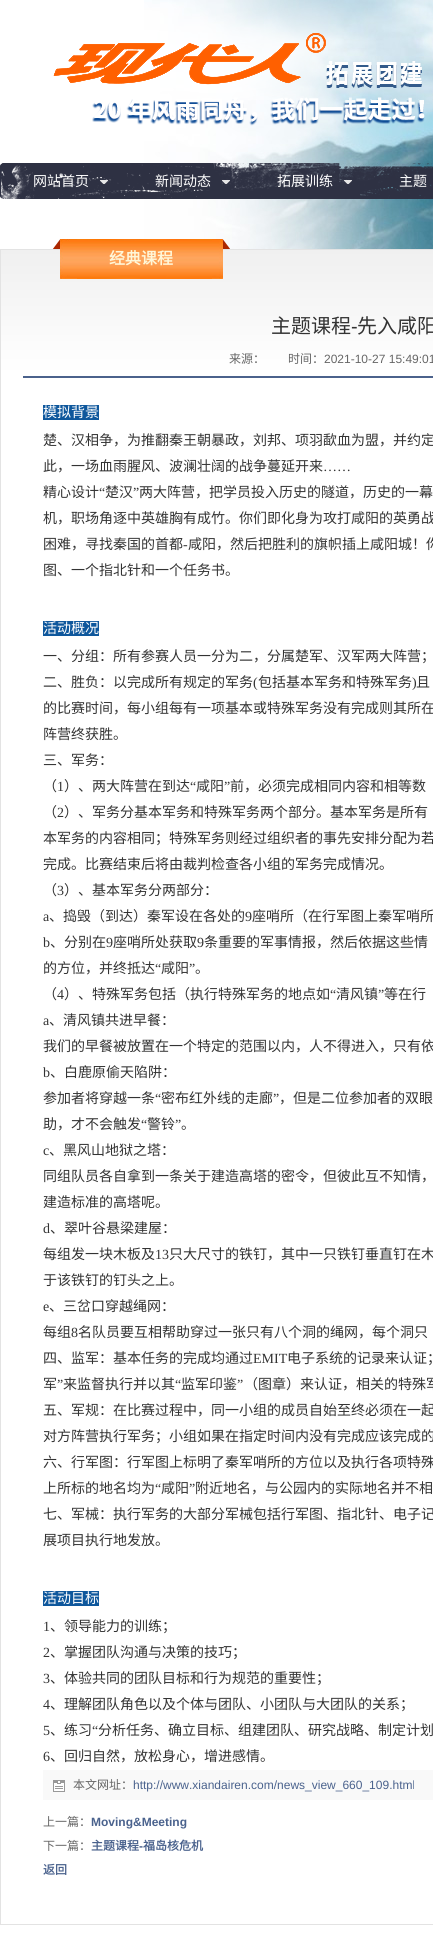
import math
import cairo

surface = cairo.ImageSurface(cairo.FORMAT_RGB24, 433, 1934)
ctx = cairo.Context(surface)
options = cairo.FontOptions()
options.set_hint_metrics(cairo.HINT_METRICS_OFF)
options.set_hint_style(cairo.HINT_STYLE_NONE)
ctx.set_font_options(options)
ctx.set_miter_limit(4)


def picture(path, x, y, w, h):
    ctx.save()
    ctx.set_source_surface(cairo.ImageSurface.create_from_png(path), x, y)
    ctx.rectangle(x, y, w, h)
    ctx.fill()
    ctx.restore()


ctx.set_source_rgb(1, 1, 1)
ctx.paint()
picture("img1.png", 144, 0, 289, 249)
picture("img2.png", 53, 0, 372, 126)
picture("img3.png", 0, 163, 433, 36)
picture("img4.png", 100, 180, 8, 4)
ctx.select_font_face("Noto Sans CJK SC")
ctx.set_font_size(14)
ctx.set_source_rgb(1, 1, 1)
ctx.move_to(33, 186)
ctx.show_text("网站首页")
picture("img5.png", 222, 180, 8, 4)
ctx.move_to(155, 186)
ctx.show_text("新闻动态")
picture("img6.png", 344, 180, 8, 4)
ctx.move_to(277, 186)
ctx.show_text("拓展训练")
ctx.move_to(399, 186)
ctx.show_text("主题")
picture("img7.png", 1, 250, 432, 313)
ctx.rectangle(0.5, 249.5, 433, 1675)
ctx.set_source_rgb(0.89, 0.89, 0.89)
ctx.set_line_width(1)
ctx.stroke()
picture("img8.png", 53, 239, 177, 40)
ctx.select_font_face("Noto Sans CJK SC", cairo.FONT_SLANT_NORMAL, cairo.FONT_WEIGHT_BOLD)
ctx.set_font_size(16)
ctx.set_source_rgb(1, 0.965, 0.847)
ctx.move_to(109, 264)
ctx.show_text("经典课程")
ctx.set_source_rgb(0.294, 0.384, 0.549)
ctx.rectangle(23, 376, 410, 2)
ctx.fill()
ctx.select_font_face("Noto Sans CJK SC")
ctx.set_font_size(20)
ctx.set_source_rgb(0.2, 0.2, 0.2)
ctx.move_to(271, 333)
ctx.show_text("主题课程")
ctx.select_font_face("Liberation Sans")
ctx.move_to(351, 333)
ctx.show_text("-")
ctx.select_font_face("Noto Sans CJK SC")
ctx.move_to(357, 333)
ctx.show_text("先入咸阳")
ctx.set_font_size(12)
ctx.set_source_rgb(0.4, 0.4, 0.4)
ctx.move_to(229, 363)
ctx.show_text("来源：")
ctx.move_to(288, 363)
ctx.show_text("时间：")
ctx.select_font_face("Liberation Sans")
ctx.move_to(324, 363)
ctx.show_text("2021-10-27 15:49:01")
ctx.set_source_rgb(0.055, 0.341, 0.612)
ctx.rectangle(43, 405, 56, 15)
ctx.fill()
ctx.select_font_face("Noto Sans CJK SC")
ctx.set_font_size(14)
ctx.set_source_rgb(1, 1, 1)
ctx.move_to(43, 417)
ctx.show_text("模拟背景")
ctx.set_source_rgb(0.2, 0.2, 0.2)
ctx.move_to(43, 445)
ctx.show_text("楚、汉相争，为推翻秦王朝暴政，刘邦、项羽歃血为盟，并约定")
ctx.move_to(43, 471)
ctx.show_text("此，一场血雨腥风、波澜壮阔的战争蔓延开来")
ctx.select_font_face("Liberation Serif")
ctx.move_to(323, 471)
ctx.show_text("……")
ctx.select_font_face("Noto Sans CJK SC")
ctx.move_to(43, 497)
ctx.show_text("精心设计")
ctx.select_font_face("Liberation Serif")
ctx.move_to(99, 497)
ctx.show_text("“")
ctx.select_font_face("Noto Sans CJK SC")
ctx.move_to(105, 497)
ctx.show_text("楚汉")
ctx.select_font_face("Liberation Serif")
ctx.move_to(133, 497)
ctx.show_text("”")
ctx.select_font_face("Noto Sans CJK SC")
ctx.move_to(139, 497)
ctx.show_text("两大阵营，把学员投入历史的隧道，历史的一幕")
ctx.move_to(43, 523)
ctx.show_text("机，职场角逐中英雄胸有成竹。你们即化身为攻打咸阳的英勇战")
ctx.move_to(43, 549)
ctx.show_text("困难，寻找秦国的首都")
ctx.select_font_face("Liberation Serif")
ctx.move_to(183, 549)
ctx.show_text("-")
ctx.select_font_face("Noto Sans CJK SC")
ctx.move_to(188, 549)
ctx.show_text("咸阳，然后把胜利的旗帜插上咸阳城！你")
ctx.move_to(43, 575)
ctx.show_text("图、一个指北针和一个任务书。")
ctx.set_source_rgb(0.055, 0.341, 0.612)
ctx.rectangle(43, 621, 56, 15)
ctx.fill()
ctx.set_source_rgb(1, 1, 1)
ctx.move_to(43, 633)
ctx.show_text("活动概况")
ctx.set_source_rgb(0.2, 0.2, 0.2)
ctx.move_to(43, 661)
ctx.show_text("一、分组：所有参赛人员一分为二，分属楚军、汉军两大阵营；")
ctx.move_to(43, 687)
ctx.show_text("二、胜负：以完成所有规定的军务")
ctx.select_font_face("Liberation Serif")
ctx.move_to(253, 687)
ctx.show_text("(")
ctx.select_font_face("Noto Sans CJK SC")
ctx.move_to(258, 687)
ctx.show_text("包括基本军务和特殊军务")
ctx.select_font_face("Liberation Serif")
ctx.move_to(412, 687)
ctx.show_text(")")
ctx.select_font_face("Noto Sans CJK SC")
ctx.move_to(416, 687)
ctx.show_text("且")
ctx.move_to(43, 713)
ctx.show_text("的比赛时间，每小组每有一项基本或特殊军务没有完成则其所在")
ctx.move_to(43, 739)
ctx.show_text("阵营终获胜。")
ctx.move_to(43, 765)
ctx.show_text("三、军务：")
ctx.move_to(43, 791)
ctx.show_text("（")
ctx.select_font_face("Liberation Serif")
ctx.move_to(57, 791)
ctx.show_text("1")
ctx.select_font_face("Noto Sans CJK SC")
ctx.move_to(64, 791)
ctx.show_text("）、两大阵营在到达")
ctx.select_font_face("Liberation Serif")
ctx.move_to(190, 791)
ctx.show_text("“")
ctx.select_font_face("Noto Sans CJK SC")
ctx.move_to(196, 791)
ctx.show_text("咸阳")
ctx.select_font_face("Liberation Serif")
ctx.move_to(224, 791)
ctx.show_text("”")
ctx.select_font_face("Noto Sans CJK SC")
ctx.move_to(230, 791)
ctx.show_text("前，必须完成相同内容和相等数")
ctx.move_to(43, 817)
ctx.show_text("（")
ctx.select_font_face("Liberation Serif")
ctx.move_to(57, 817)
ctx.show_text("2")
ctx.select_font_face("Noto Sans CJK SC")
ctx.move_to(64, 817)
ctx.show_text("）、军务分基本军务和特殊军务两个部分。基本军务是所有")
ctx.move_to(43, 843)
ctx.show_text("本军务的内容相同；特殊军务则经过组织者的事先安排分配为若")
ctx.move_to(43, 869)
ctx.show_text("完成。比赛结束后将由裁判检查各小组的军务完成情况。")
ctx.move_to(43, 895)
ctx.show_text("（")
ctx.select_font_face("Liberation Serif")
ctx.move_to(57, 895)
ctx.show_text("3")
ctx.select_font_face("Noto Sans CJK SC")
ctx.move_to(64, 895)
ctx.show_text("）、基本军务分两部分：")
ctx.select_font_face("Liberation Serif")
ctx.move_to(43, 921)
ctx.show_text("a")
ctx.select_font_face("Noto Sans CJK SC")
ctx.move_to(49, 921)
ctx.show_text("、捣毁（到达）秦军设在各处的")
ctx.select_font_face("Liberation Serif")
ctx.move_to(245, 921)
ctx.show_text("9")
ctx.select_font_face("Noto Sans CJK SC")
ctx.move_to(252, 921)
ctx.show_text("座哨所（在行军图上秦军哨所")
ctx.select_font_face("Liberation Serif")
ctx.move_to(43, 947)
ctx.show_text("b")
ctx.select_font_face("Noto Sans CJK SC")
ctx.move_to(50, 947)
ctx.show_text("、分别在")
ctx.select_font_face("Liberation Serif")
ctx.move_to(106, 947)
ctx.show_text("9")
ctx.select_font_face("Noto Sans CJK SC")
ctx.move_to(113, 947)
ctx.show_text("座哨所处获取")
ctx.select_font_face("Liberation Serif")
ctx.move_to(197, 947)
ctx.show_text("9")
ctx.select_font_face("Noto Sans CJK SC")
ctx.move_to(204, 947)
ctx.show_text("条重要的军事情报，然后依据这些情")
ctx.move_to(43, 973)
ctx.show_text("的方位，并终抵达")
ctx.select_font_face("Liberation Serif")
ctx.move_to(155, 973)
ctx.show_text("“")
ctx.select_font_face("Noto Sans CJK SC")
ctx.move_to(161, 973)
ctx.show_text("咸阳")
ctx.select_font_face("Liberation Serif")
ctx.move_to(189, 973)
ctx.show_text("”")
ctx.select_font_face("Noto Sans CJK SC")
ctx.move_to(195, 973)
ctx.show_text("。")
ctx.move_to(43, 999)
ctx.show_text("（")
ctx.select_font_face("Liberation Serif")
ctx.move_to(57, 999)
ctx.show_text("4")
ctx.select_font_face("Noto Sans CJK SC")
ctx.move_to(64, 999)
ctx.show_text("）、特殊军务包括（执行特殊军务的地点如")
ctx.select_font_face("Liberation Serif")
ctx.move_to(330, 999)
ctx.show_text("“")
ctx.select_font_face("Noto Sans CJK SC")
ctx.move_to(336, 999)
ctx.show_text("清风镇")
ctx.select_font_face("Liberation Serif")
ctx.move_to(378, 999)
ctx.show_text("”")
ctx.select_font_face("Noto Sans CJK SC")
ctx.move_to(384, 999)
ctx.show_text("等在行")
ctx.select_font_face("Liberation Serif")
ctx.move_to(43, 1025)
ctx.show_text("a")
ctx.select_font_face("Noto Sans CJK SC")
ctx.move_to(49, 1025)
ctx.show_text("、清风镇共进早餐：")
ctx.move_to(43, 1051)
ctx.show_text("我们的早餐被放置在一个特定的范围以内，人不得进入，只有依")
ctx.select_font_face("Liberation Serif")
ctx.move_to(43, 1077)
ctx.show_text("b")
ctx.select_font_face("Noto Sans CJK SC")
ctx.move_to(50, 1077)
ctx.show_text("、白鹿原偷天陷阱：")
ctx.move_to(43, 1103)
ctx.show_text("参加者将穿越一条")
ctx.select_font_face("Liberation Serif")
ctx.move_to(155, 1103)
ctx.show_text("“")
ctx.select_font_face("Noto Sans CJK SC")
ctx.move_to(161, 1103)
ctx.show_text("密布红外线的走廊")
ctx.select_font_face("Liberation Serif")
ctx.move_to(273, 1103)
ctx.show_text("”")
ctx.select_font_face("Noto Sans CJK SC")
ctx.move_to(279, 1103)
ctx.show_text("，但是二位参加者的双眼")
ctx.move_to(43, 1129)
ctx.show_text("助，才不会触发")
ctx.select_font_face("Liberation Serif")
ctx.move_to(141, 1129)
ctx.show_text("“")
ctx.select_font_face("Noto Sans CJK SC")
ctx.move_to(147, 1129)
ctx.show_text("警铃")
ctx.select_font_face("Liberation Serif")
ctx.move_to(175, 1129)
ctx.show_text("”")
ctx.select_font_face("Noto Sans CJK SC")
ctx.move_to(181, 1129)
ctx.show_text("。")
ctx.select_font_face("Liberation Serif")
ctx.move_to(43, 1155)
ctx.show_text("c")
ctx.select_font_face("Noto Sans CJK SC")
ctx.move_to(49, 1155)
ctx.show_text("、黑风山地狱之塔：")
ctx.move_to(43, 1181)
ctx.show_text("同组队员各自拿到一条关于建造高塔的密令，但彼此互不知情，")
ctx.move_to(43, 1207)
ctx.show_text("建造标准的高塔呢。")
ctx.select_font_face("Liberation Serif")
ctx.move_to(43, 1233)
ctx.show_text("d")
ctx.select_font_face("Noto Sans CJK SC")
ctx.move_to(50, 1233)
ctx.show_text("、翠叶谷悬梁建屋：")
ctx.move_to(43, 1259)
ctx.show_text("每组发一块木板及")
ctx.select_font_face("Liberation Serif")
ctx.move_to(155, 1259)
ctx.show_text("13")
ctx.select_font_face("Noto Sans CJK SC")
ctx.move_to(169, 1259)
ctx.show_text("只大尺寸的铁钉，其中一只铁钉垂直钉在木")
ctx.move_to(43, 1285)
ctx.show_text("于该铁钉的钉头之上。")
ctx.select_font_face("Liberation Serif")
ctx.move_to(43, 1311)
ctx.show_text("e")
ctx.select_font_face("Noto Sans CJK SC")
ctx.move_to(49, 1311)
ctx.show_text("、三岔口穿越绳网：")
ctx.move_to(43, 1337)
ctx.show_text("每组")
ctx.select_font_face("Liberation Serif")
ctx.move_to(71, 1337)
ctx.show_text("8")
ctx.select_font_face("Noto Sans CJK SC")
ctx.move_to(78, 1337)
ctx.show_text("名队员要互相帮助穿过一张只有八个洞的绳网，每个洞只")
ctx.move_to(43, 1363)
ctx.show_text("四、监军：基本任务的完成均通过")
ctx.select_font_face("Liberation Serif")
ctx.move_to(253, 1363)
ctx.show_text("EMIT")
ctx.select_font_face("Noto Sans CJK SC")
ctx.move_to(287, 1363)
ctx.show_text("电子系统的记录来认证；")
ctx.move_to(43, 1389)
ctx.show_text("军")
ctx.select_font_face("Liberation Serif")
ctx.move_to(57, 1389)
ctx.show_text("”")
ctx.select_font_face("Noto Sans CJK SC")
ctx.move_to(63, 1389)
ctx.show_text("来监督执行并以其")
ctx.select_font_face("Liberation Serif")
ctx.move_to(175, 1389)
ctx.show_text("“")
ctx.select_font_face("Noto Sans CJK SC")
ctx.move_to(181, 1389)
ctx.show_text("监军印鉴")
ctx.select_font_face("Liberation Serif")
ctx.move_to(237, 1389)
ctx.show_text("”")
ctx.select_font_face("Noto Sans CJK SC")
ctx.move_to(244, 1389)
ctx.show_text("（图章）来认证，相关的特殊军")
ctx.move_to(43, 1415)
ctx.show_text("五、军规：在比赛过程中，同一小组的成员自始至终必须在一起")
ctx.move_to(43, 1441)
ctx.show_text("对方阵营执行军务；小组如果在指定时间内没有完成应该完成的")
ctx.move_to(43, 1467)
ctx.show_text("六、行军图：行军图上标明了秦军哨所的方位以及执行各项特殊")
ctx.move_to(43, 1493)
ctx.show_text("上所标的地名均为")
ctx.select_font_face("Liberation Serif")
ctx.move_to(155, 1493)
ctx.show_text("“")
ctx.select_font_face("Noto Sans CJK SC")
ctx.move_to(161, 1493)
ctx.show_text("咸阳")
ctx.select_font_face("Liberation Serif")
ctx.move_to(189, 1493)
ctx.show_text("”")
ctx.select_font_face("Noto Sans CJK SC")
ctx.move_to(195, 1493)
ctx.show_text("附近地名，与公园内的实际地名并不相")
ctx.move_to(43, 1519)
ctx.show_text("七、军械：执行军务的大部分军械包括行军图、指北针、电子记")
ctx.move_to(43, 1545)
ctx.show_text("展项目执行地发放。")
ctx.set_source_rgb(0.055, 0.341, 0.612)
ctx.rectangle(43, 1591, 56, 15)
ctx.fill()
ctx.set_source_rgb(1, 1, 1)
ctx.move_to(43, 1603)
ctx.show_text("活动目标")
ctx.select_font_face("Liberation Serif")
ctx.set_source_rgb(0.2, 0.2, 0.2)
ctx.move_to(43, 1631)
ctx.show_text("1")
ctx.select_font_face("Noto Sans CJK SC")
ctx.move_to(50, 1631)
ctx.show_text("、领导能力的训练；")
ctx.select_font_face("Liberation Serif")
ctx.move_to(43, 1657)
ctx.show_text("2")
ctx.select_font_face("Noto Sans CJK SC")
ctx.move_to(50, 1657)
ctx.show_text("、掌握团队沟通与决策的技巧；")
ctx.select_font_face("Liberation Serif")
ctx.move_to(43, 1683)
ctx.show_text("3")
ctx.select_font_face("Noto Sans CJK SC")
ctx.move_to(50, 1683)
ctx.show_text("、体验共同的团队目标和行为规范的重要性；")
ctx.select_font_face("Liberation Serif")
ctx.move_to(43, 1709)
ctx.show_text("4")
ctx.select_font_face("Noto Sans CJK SC")
ctx.move_to(50, 1709)
ctx.show_text("、理解团队角色以及个体与团队、小团队与大团队的关系；")
ctx.select_font_face("Liberation Serif")
ctx.move_to(43, 1735)
ctx.show_text("5")
ctx.select_font_face("Noto Sans CJK SC")
ctx.move_to(50, 1735)
ctx.show_text("、练习")
ctx.select_font_face("Liberation Serif")
ctx.move_to(92, 1735)
ctx.show_text("“")
ctx.select_font_face("Noto Sans CJK SC")
ctx.move_to(98, 1735)
ctx.show_text("分析任务、确立目标、组建团队、研究战略、制定计划")
ctx.select_font_face("Liberation Serif")
ctx.move_to(43, 1761)
ctx.show_text("6")
ctx.select_font_face("Noto Sans CJK SC")
ctx.move_to(50, 1761)
ctx.show_text("、回归自然，放松身心，增进感情。")
ctx.set_source_rgb(0.973, 0.973, 0.973)
ctx.rectangle(43, 1770, 390, 30)
ctx.fill()
picture("img9.png", 53, 1780, 12, 12)
ctx.set_font_size(12)
ctx.set_source_rgb(0.4, 0.4, 0.4)
ctx.move_to(73, 1789)
ctx.show_text("本文网址：")
ctx.select_font_face("Liberation Sans")
ctx.set_source_rgb(0.29, 0.384, 0.553)
ctx.move_to(133, 1789)
ctx.show_text("http://www.xiandairen.com/news_view_660_109.html")
ctx.select_font_face("Noto Sans CJK SC")
ctx.set_source_rgb(0.4, 0.4, 0.4)
ctx.move_to(43, 1826)
ctx.show_text("上一篇：")
ctx.select_font_face("Liberation Sans", cairo.FONT_SLANT_NORMAL, cairo.FONT_WEIGHT_BOLD)
ctx.set_source_rgb(0.29, 0.384, 0.553)
ctx.move_to(91, 1826)
ctx.show_text("Moving&Meeting")
ctx.select_font_face("Noto Sans CJK SC")
ctx.set_source_rgb(0.4, 0.4, 0.4)
ctx.move_to(43, 1850)
ctx.show_text("下一篇：")
ctx.select_font_face("Noto Sans CJK SC", cairo.FONT_SLANT_NORMAL, cairo.FONT_WEIGHT_BOLD)
ctx.set_source_rgb(0.29, 0.384, 0.553)
ctx.move_to(91, 1850)
ctx.show_text("主题课程")
ctx.select_font_face("Liberation Sans", cairo.FONT_SLANT_NORMAL, cairo.FONT_WEIGHT_BOLD)
ctx.move_to(139, 1850)
ctx.show_text("-")
ctx.select_font_face("Noto Sans CJK SC", cairo.FONT_SLANT_NORMAL, cairo.FONT_WEIGHT_BOLD)
ctx.move_to(143, 1850)
ctx.show_text("福岛核危机")
ctx.move_to(43, 1874)
ctx.show_text("返回")
surface.write_to_png("page.png")
